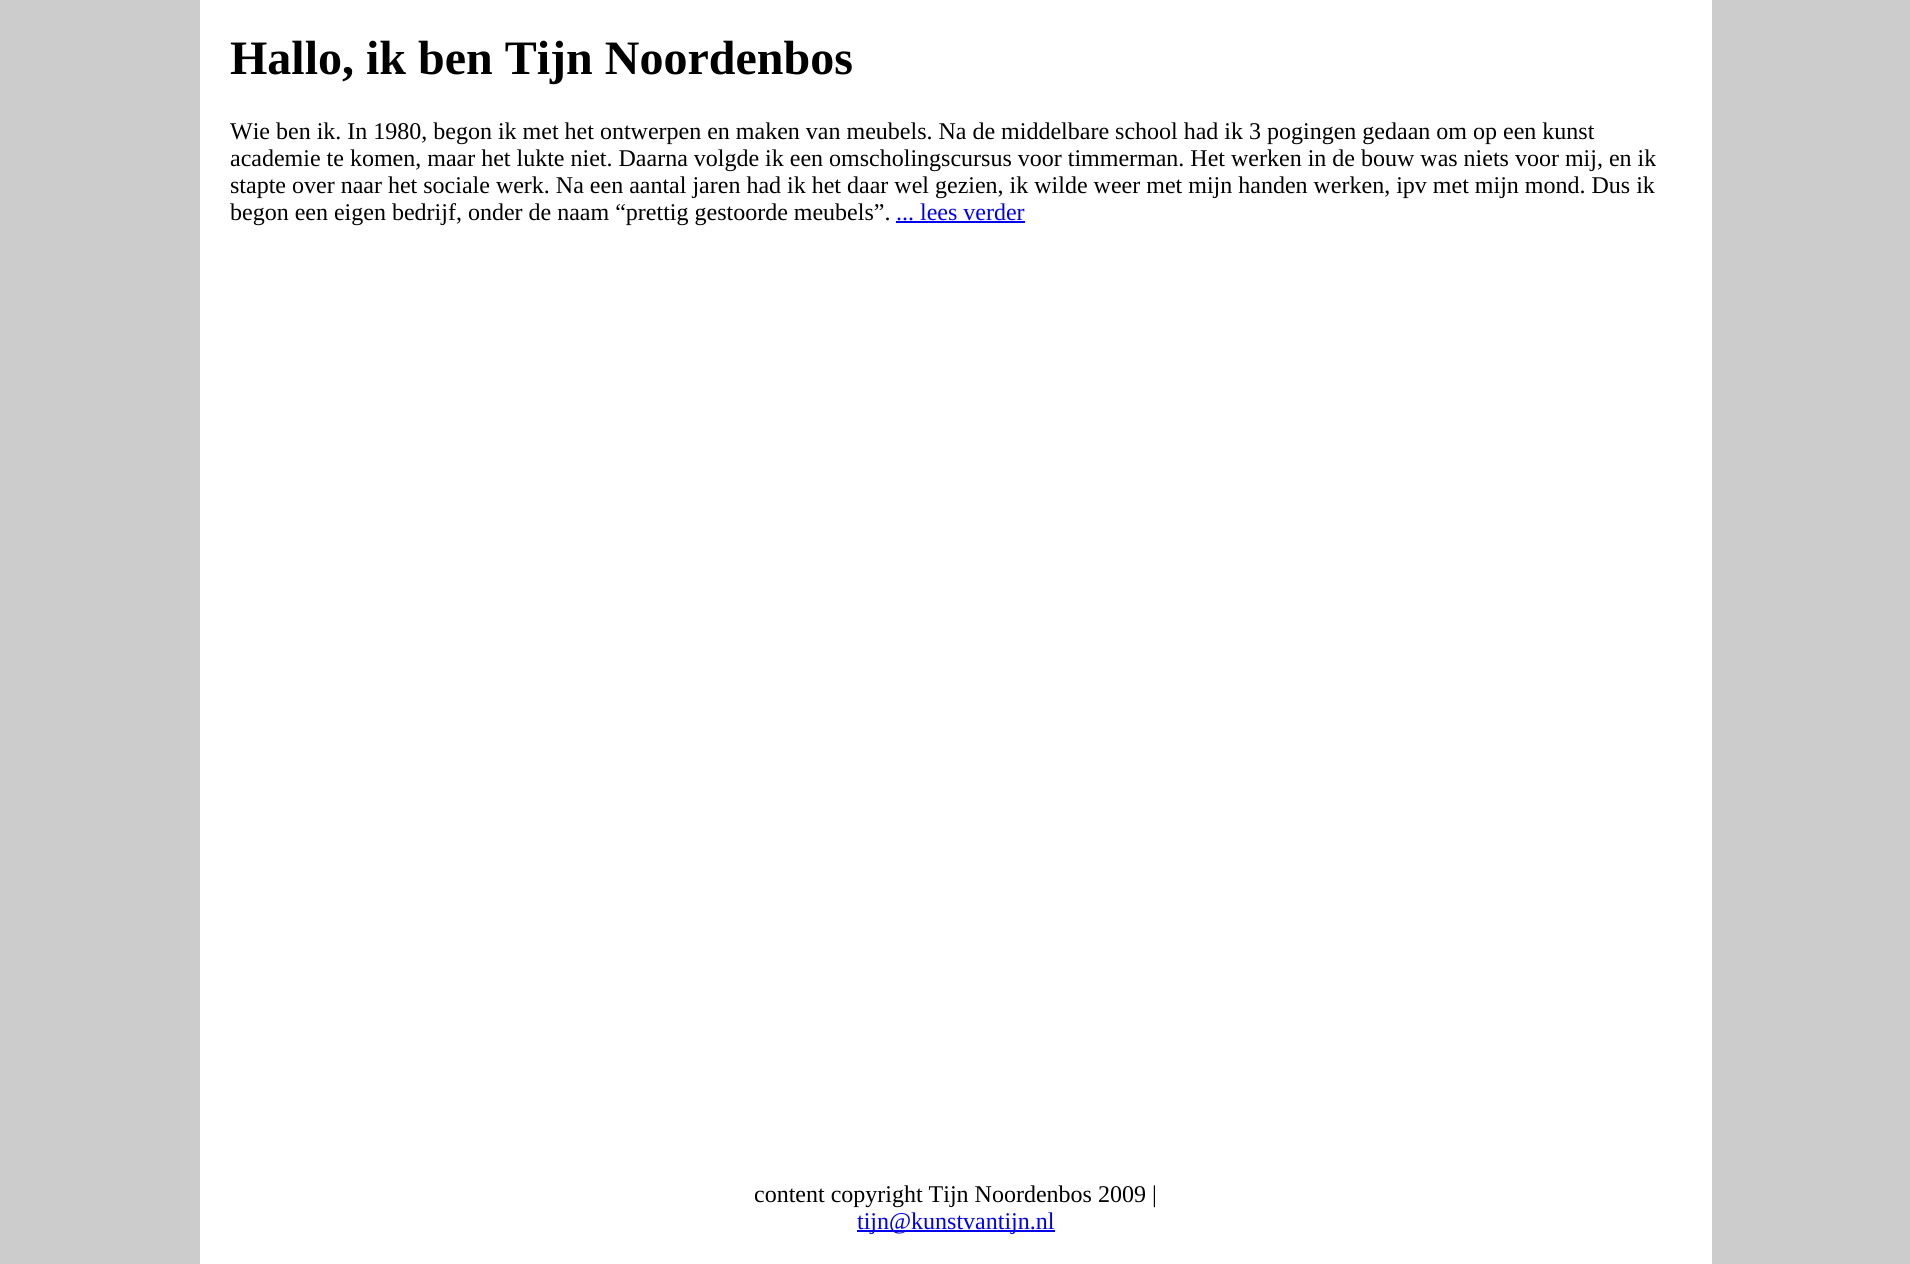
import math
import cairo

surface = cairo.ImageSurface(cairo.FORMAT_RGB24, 1910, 1264)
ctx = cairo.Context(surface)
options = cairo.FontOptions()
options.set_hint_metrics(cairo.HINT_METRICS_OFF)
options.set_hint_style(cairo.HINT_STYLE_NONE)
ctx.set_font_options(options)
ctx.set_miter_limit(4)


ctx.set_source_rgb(0.8, 0.8, 0.8)
ctx.paint()
ctx.set_source_rgb(1, 1, 1)
ctx.rectangle(200, 0, 1512, 1264)
ctx.fill()
ctx.select_font_face("Liberation Serif", cairo.FONT_SLANT_NORMAL, cairo.FONT_WEIGHT_BOLD)
ctx.set_font_size(48)
ctx.set_source_rgb(0, 0, 0)
ctx.move_to(230, 74)
ctx.show_text("Hallo, ik ben Tijn Noordenbos")
ctx.select_font_face("Liberation Serif")
ctx.set_font_size(24)
ctx.move_to(230, 139)
ctx.show_text("Wie ben ik. In 1980, begon ik met het ontwerpen en maken van meubels. Na de middelbare school had ik 3 pogingen gedaan om op een kunst")
ctx.move_to(230, 166)
ctx.show_text("academie te komen, maar het lukte niet. Daarna volgde ik een omscholingscursus voor timmerman. Het werken in de bouw was niets voor mij, en ik")
ctx.move_to(230, 193)
ctx.show_text("stapte over naar het sociale werk. Na een aantal jaren had ik het daar wel gezien, ik wilde weer met mijn handen werken, ipv met mijn mond. Dus ik")
ctx.move_to(230, 220)
ctx.show_text("begon een eigen bedrijf, onder de naam “prettig gestoorde meubels”.")
ctx.set_source_rgb(0, 0, 0.933)
ctx.move_to(896, 220)
ctx.show_text("... lees verder")
ctx.rectangle(896, 221, 129, 2)
ctx.fill()
ctx.set_source_rgb(0, 0, 0)
ctx.move_to(754, 1202)
ctx.show_text("content copyright Tijn Noordenbos 2009 |")
ctx.set_source_rgb(0, 0, 0.933)
ctx.rectangle(857, 1230, 198, 2)
ctx.fill()
ctx.move_to(857, 1229)
ctx.show_text("tijn@kunstvantijn.nl")
surface.write_to_png("page.png")
